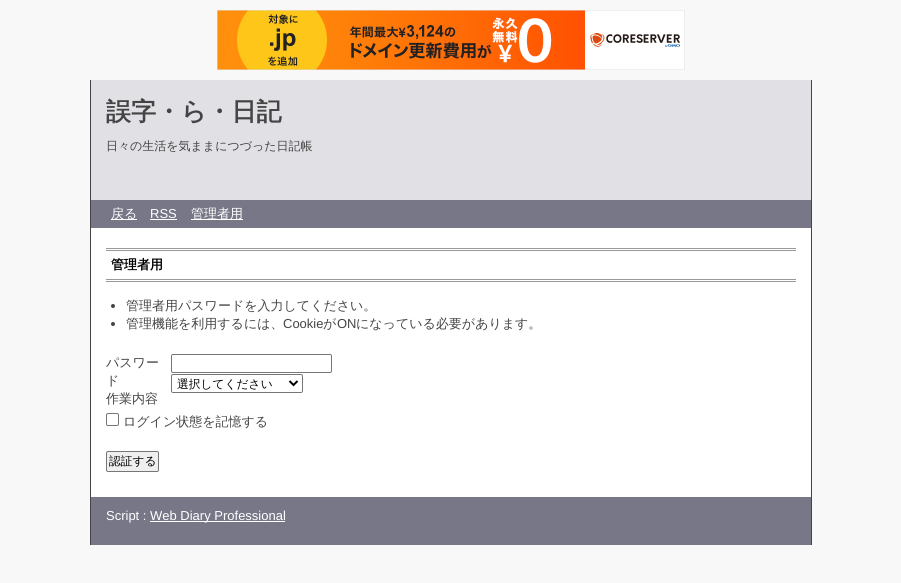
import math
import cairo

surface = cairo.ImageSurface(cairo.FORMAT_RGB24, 901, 583)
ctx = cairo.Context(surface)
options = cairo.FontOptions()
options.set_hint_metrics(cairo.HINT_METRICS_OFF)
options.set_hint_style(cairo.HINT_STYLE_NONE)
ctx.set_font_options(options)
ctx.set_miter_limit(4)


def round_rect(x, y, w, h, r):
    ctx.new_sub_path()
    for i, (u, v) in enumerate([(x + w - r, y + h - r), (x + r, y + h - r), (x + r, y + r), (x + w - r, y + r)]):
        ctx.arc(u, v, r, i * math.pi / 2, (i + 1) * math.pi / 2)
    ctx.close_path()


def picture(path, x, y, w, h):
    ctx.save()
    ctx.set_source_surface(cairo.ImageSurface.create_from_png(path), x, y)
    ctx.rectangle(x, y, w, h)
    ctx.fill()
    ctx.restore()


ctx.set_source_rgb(0.969, 0.969, 0.969)
ctx.paint()
picture("img1.png", 217, 10, 468, 60)
ctx.set_source_rgb(1, 1, 1)
ctx.rectangle(91, 228, 720, 269)
ctx.fill()
ctx.set_source_rgb(0.267, 0.267, 0.267)
ctx.rectangle(811, 80, 1, 465)
ctx.fill()
ctx.rectangle(90, 80, 1, 465)
ctx.fill()
ctx.set_source_rgb(0.878, 0.878, 0.898)
ctx.rectangle(91, 80, 720, 120)
ctx.fill()
ctx.select_font_face("WenQuanYi Zen Hei", cairo.FONT_SLANT_NORMAL, cairo.FONT_WEIGHT_BOLD)
ctx.set_font_size(25)
ctx.set_source_rgb(0.267, 0.267, 0.267)
ctx.move_to(106, 120)
ctx.show_text("誤字・ら・日記")
ctx.select_font_face("WenQuanYi Zen Hei Medium")
ctx.set_font_size(12)
ctx.move_to(106, 150)
ctx.show_text("日々の生活を気ままにつづった日記帳")
ctx.set_source_rgb(0.467, 0.467, 0.533)
ctx.rectangle(91, 200, 720, 28)
ctx.fill()
ctx.set_source_rgb(1, 1, 1)
ctx.rectangle(111, 219, 26, 1)
ctx.fill()
ctx.set_font_size(13)
ctx.move_to(111, 218)
ctx.show_text("戻る")
ctx.select_font_face("Liberation Sans")
ctx.move_to(150, 218)
ctx.show_text("RSS")
ctx.rectangle(150, 219, 27, 1)
ctx.fill()
ctx.rectangle(191, 219, 52, 1)
ctx.fill()
ctx.select_font_face("WenQuanYi Zen Hei Medium")
ctx.move_to(191, 218)
ctx.show_text("管理者用")
ctx.set_source_rgb(0.6, 0.6, 0.6)
ctx.rectangle(106, 248, 690, 1)
ctx.fill()
ctx.rectangle(106, 250, 690, 1)
ctx.fill()
ctx.rectangle(106, 279, 690, 1)
ctx.fill()
ctx.rectangle(106, 281, 690, 1)
ctx.fill()
ctx.select_font_face("WenQuanYi Zen Hei", cairo.FONT_SLANT_NORMAL, cairo.FONT_WEIGHT_BOLD)
ctx.set_source_rgb(0, 0, 0)
ctx.move_to(111, 269)
ctx.show_text("管理者用")
ctx.set_source_rgb(0.267, 0.267, 0.267)
ctx.new_path()
ctx.arc(113, 306, 2, 0, 2 * math.pi)
ctx.fill()
ctx.select_font_face("WenQuanYi Zen Hei Medium")
ctx.move_to(126, 310)
ctx.show_text("管理者用パスワードを入力してください。")
ctx.new_path()
ctx.arc(113, 324, 2, 0, 2 * math.pi)
ctx.fill()
ctx.move_to(126, 328)
ctx.show_text("管理機能を利用するには、")
ctx.select_font_face("Liberation Sans")
ctx.move_to(283, 328)
ctx.show_text("Cookie")
ctx.select_font_face("WenQuanYi Zen Hei Medium")
ctx.move_to(323, 328)
ctx.show_text("が")
ctx.select_font_face("Liberation Sans")
ctx.move_to(337, 328)
ctx.show_text("ON")
ctx.select_font_face("WenQuanYi Zen Hei Medium")
ctx.move_to(356, 328)
ctx.show_text("になっている必要があります。")
ctx.move_to(106, 367)
ctx.show_text("パスワー")
ctx.move_to(106, 385)
ctx.show_text("ド")
round_rect(171.5, 354.5, 160, 18, 1.5)
ctx.set_source_rgb(0.463, 0.463, 0.463)
ctx.set_line_width(1)
ctx.stroke()
round_rect(171.5, 374.5, 131, 18, 1.5)
ctx.stroke()
ctx.new_path()
ctx.move_to(289.5, 381)
ctx.line_to(293.5, 385)
ctx.line_to(297.5, 381)
ctx.set_source_rgb(0, 0, 0)
ctx.set_line_width(2)
ctx.stroke()
ctx.set_font_size(11.75)
ctx.move_to(177, 388)
ctx.show_text("選択してください")
ctx.set_font_size(13)
ctx.set_source_rgb(0.267, 0.267, 0.267)
ctx.move_to(106, 403)
ctx.show_text("作業内容")
round_rect(106.5, 413.5, 12, 12, 1.5)
ctx.set_source_rgb(0.463, 0.463, 0.463)
ctx.set_line_width(1)
ctx.stroke()
ctx.set_source_rgb(0.267, 0.267, 0.267)
ctx.move_to(123, 426)
ctx.show_text("ログイン状態を記憶する")
ctx.set_source_rgb(0.937, 0.937, 0.937)
round_rect(106.5, 451.5, 52, 20, 1.5)
ctx.fill_preserve()
ctx.set_source_rgb(0.463, 0.463, 0.463)
ctx.stroke()
ctx.set_font_size(11.75)
ctx.set_source_rgb(0, 0, 0)
ctx.move_to(109, 465)
ctx.show_text("認証する")
ctx.set_source_rgb(0.467, 0.467, 0.533)
ctx.rectangle(91, 497, 720, 48)
ctx.fill()
ctx.select_font_face("Liberation Sans")
ctx.set_font_size(13)
ctx.set_source_rgb(1, 1, 1)
ctx.move_to(106, 520)
ctx.show_text("Script :")
ctx.rectangle(150, 521, 135, 1)
ctx.fill()
ctx.move_to(150, 520)
ctx.show_text("Web Diary Professional")
surface.write_to_png("page.png")
